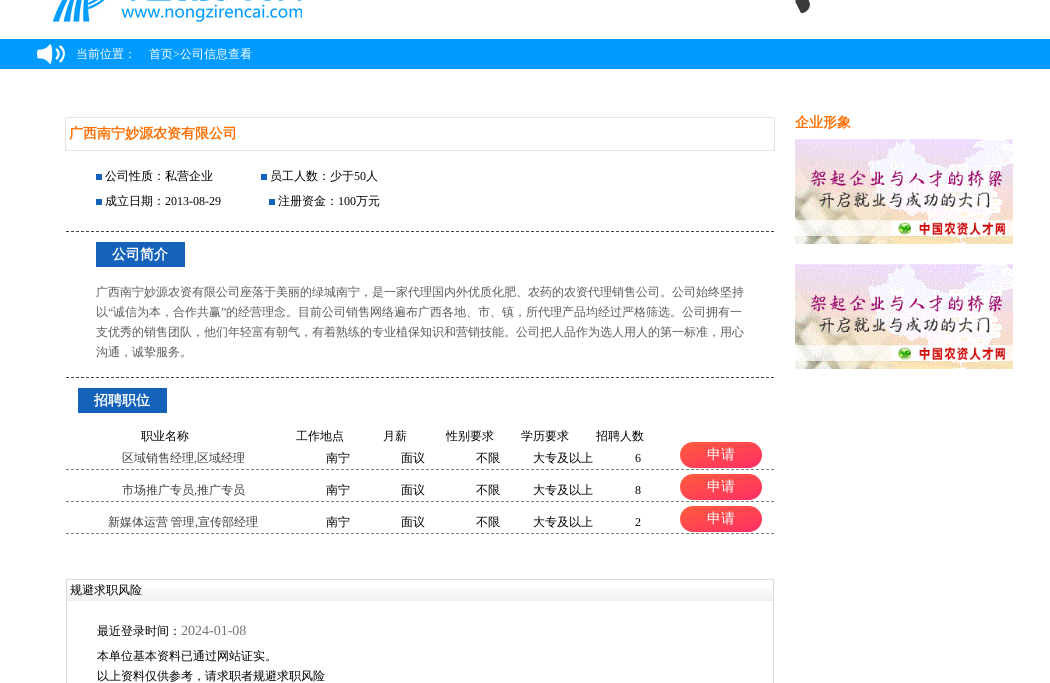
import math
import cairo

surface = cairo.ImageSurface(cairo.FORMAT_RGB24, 1050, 683)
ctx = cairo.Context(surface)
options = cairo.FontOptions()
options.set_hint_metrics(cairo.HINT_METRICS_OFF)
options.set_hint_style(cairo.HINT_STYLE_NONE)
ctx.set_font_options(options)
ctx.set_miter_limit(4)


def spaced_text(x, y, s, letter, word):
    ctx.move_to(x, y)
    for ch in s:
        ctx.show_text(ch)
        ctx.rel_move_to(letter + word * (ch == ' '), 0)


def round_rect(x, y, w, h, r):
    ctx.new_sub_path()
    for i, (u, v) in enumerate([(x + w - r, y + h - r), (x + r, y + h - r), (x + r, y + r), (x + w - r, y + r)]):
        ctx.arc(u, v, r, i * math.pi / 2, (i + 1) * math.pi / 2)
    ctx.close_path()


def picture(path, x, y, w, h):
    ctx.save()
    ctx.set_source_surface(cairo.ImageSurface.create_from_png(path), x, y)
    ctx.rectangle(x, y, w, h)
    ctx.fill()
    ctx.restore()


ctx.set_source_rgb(1, 1, 1)
ctx.paint()
picture("img1.png", 50, 0, 252, 28)
picture("img2.png", 793, 0, 18, 13)
ctx.set_source_rgb(0, 0.608, 0.988)
ctx.rectangle(0, 39, 1050, 30)
ctx.fill()
picture("img3.png", 37, 44, 28, 20)
ctx.select_font_face("WenQuanYi Zen Hei Medium")
ctx.set_font_size(12)
ctx.set_source_rgb(1, 1, 1)
ctx.move_to(76, 58)
ctx.show_text("当前位置：")
ctx.move_to(149, 58)
ctx.show_text("首页")
ctx.select_font_face("Liberation Serif")
ctx.move_to(173, 58)
ctx.show_text(">")
ctx.select_font_face("WenQuanYi Zen Hei Medium")
ctx.move_to(180, 58)
ctx.show_text("公司信息查看")
ctx.select_font_face("WenQuanYi Zen Hei", cairo.FONT_SLANT_NORMAL, cairo.FONT_WEIGHT_BOLD)
ctx.set_font_size(14)
ctx.set_source_rgb(1, 0.431, 0)
ctx.move_to(795, 127)
ctx.show_text("企业形象")
picture("img4.png", 795, 139, 218, 105)
picture("img4.png", 795, 264, 218, 105)
ctx.rectangle(65.5, 117.5, 709, 33)
ctx.set_source_rgb(0.898, 0.898, 0.898)
ctx.set_line_width(1)
ctx.stroke()
ctx.set_source_rgb(1, 0.431, 0)
ctx.move_to(69, 138)
ctx.show_text("广西南宁妙源农资有限公司")
ctx.set_source_rgb(0.082, 0.384, 0.729)
ctx.rectangle(96, 174, 6, 6)
ctx.fill()
ctx.select_font_face("WenQuanYi Zen Hei Medium")
ctx.set_font_size(12)
ctx.set_source_rgb(0, 0, 0)
ctx.move_to(105, 180)
ctx.show_text("公司性质：私营企业")
ctx.set_source_rgb(0.082, 0.384, 0.729)
ctx.rectangle(261, 174, 6, 6)
ctx.fill()
ctx.set_source_rgb(0, 0, 0)
ctx.move_to(270, 180)
ctx.show_text("员工人数：少于")
ctx.select_font_face("Liberation Serif")
ctx.move_to(354, 180)
ctx.show_text("50")
ctx.select_font_face("WenQuanYi Zen Hei Medium")
ctx.move_to(366, 180)
ctx.show_text("人")
ctx.set_source_rgb(0.082, 0.384, 0.729)
ctx.rectangle(96, 199, 6, 6)
ctx.fill()
ctx.set_source_rgb(0, 0, 0)
ctx.move_to(105, 205)
ctx.show_text("成立日期：")
ctx.select_font_face("Liberation Serif")
ctx.move_to(165, 205)
ctx.show_text("2013-08-29")
ctx.set_source_rgb(0.082, 0.384, 0.729)
ctx.rectangle(269, 199, 6, 6)
ctx.fill()
ctx.select_font_face("WenQuanYi Zen Hei Medium")
ctx.set_source_rgb(0, 0, 0)
ctx.move_to(278, 205)
ctx.show_text("注册资金：")
ctx.select_font_face("Liberation Serif")
ctx.move_to(338, 205)
ctx.show_text("100")
ctx.select_font_face("WenQuanYi Zen Hei Medium")
ctx.move_to(356, 205)
ctx.show_text("万元")
ctx.new_path()
ctx.move_to(66, 231.5)
ctx.line_to(774, 231.5)
ctx.set_source_rgb(0.275, 0.275, 0.275)
ctx.set_dash([3, 2])
ctx.stroke()
ctx.new_path()
ctx.move_to(66, 377.5)
ctx.line_to(774, 377.5)
ctx.stroke()
ctx.set_source_rgb(0.082, 0.384, 0.729)
ctx.rectangle(96, 242, 89, 25)
ctx.fill()
ctx.select_font_face("WenQuanYi Zen Hei", cairo.FONT_SLANT_NORMAL, cairo.FONT_WEIGHT_BOLD)
ctx.set_font_size(14)
ctx.set_source_rgb(1, 1, 1)
ctx.move_to(112, 259)
ctx.show_text("公司简介")
ctx.select_font_face("WenQuanYi Zen Hei Medium")
ctx.set_font_size(12)
ctx.set_source_rgb(0.361, 0.361, 0.361)
ctx.move_to(96, 296)
ctx.show_text("广西南宁妙源农资有限公司座落于美丽的绿城南宁，是一家代理国内外优质化肥、农药的农资代理销售公司。公司始终坚持")
ctx.move_to(96, 316)
ctx.show_text("以")
ctx.select_font_face("Liberation Serif")
ctx.move_to(108, 316)
ctx.show_text("“")
ctx.select_font_face("WenQuanYi Zen Hei Medium")
ctx.move_to(113, 316)
ctx.show_text("诚信为本，合作共赢")
ctx.select_font_face("Liberation Serif")
ctx.move_to(221, 316)
ctx.show_text("”")
ctx.select_font_face("WenQuanYi Zen Hei Medium")
ctx.move_to(226, 316)
ctx.show_text("的经营理念。目前公司销售网络遍布广西各地、市、镇，所代理产品均经过严格筛选。公司拥有一")
ctx.move_to(96, 336)
ctx.show_text("支优秀的销售团队，他们年轻富有朝气，有着熟练的专业植保知识和营销技能。公司把人品作为选人用人的第一标准，用心")
ctx.move_to(96, 356)
ctx.show_text("沟通，诚挚服务。")
ctx.set_source_rgb(0.082, 0.384, 0.729)
ctx.rectangle(78, 388, 89, 25)
ctx.fill()
ctx.select_font_face("WenQuanYi Zen Hei", cairo.FONT_SLANT_NORMAL, cairo.FONT_WEIGHT_BOLD)
ctx.set_font_size(14)
ctx.set_source_rgb(1, 1, 1)
ctx.move_to(94, 405)
ctx.show_text("招聘职位")
ctx.select_font_face("WenQuanYi Zen Hei Medium")
ctx.set_font_size(12)
ctx.set_source_rgb(0, 0, 0)
ctx.move_to(141, 440)
ctx.show_text("职业名称")
ctx.move_to(296, 440)
ctx.show_text("工作地点")
ctx.move_to(383, 440)
ctx.show_text("月薪")
ctx.move_to(446, 440)
ctx.show_text("性别要求")
ctx.move_to(521, 440)
ctx.show_text("学历要求")
ctx.move_to(596, 440)
ctx.show_text("招聘人数")
ctx.new_path()
ctx.move_to(66, 469.5)
ctx.line_to(774, 469.5)
ctx.set_source_rgb(0.502, 0.502, 0.502)
ctx.stroke()
ctx.set_source_rgb(0.251, 0.251, 0.251)
ctx.move_to(122, 462)
ctx.show_text("区域销售经理")
ctx.select_font_face("Liberation Serif")
ctx.move_to(194, 462)
ctx.show_text(",")
ctx.select_font_face("WenQuanYi Zen Hei Medium")
ctx.move_to(197, 462)
ctx.show_text("区域经理")
ctx.set_source_rgb(0, 0, 0)
ctx.move_to(326, 462)
ctx.show_text("南宁")
ctx.move_to(401, 462)
ctx.show_text("面议")
ctx.move_to(476, 462)
ctx.show_text("不限")
ctx.move_to(533, 462)
ctx.show_text("大专及以上")
ctx.select_font_face("Liberation Serif")
ctx.move_to(635, 462)
ctx.show_text("6")
gradient = cairo.LinearGradient(714, 431, 728, 479)
gradient.add_color_stop_rgba(0, 1, 0.365, 0.231, 1)
gradient.add_color_stop_rgba(1, 1, 0.176, 0.4, 1)
ctx.set_source(gradient)
round_rect(680, 442, 82, 26, 13)
ctx.fill()
ctx.select_font_face("WenQuanYi Zen Hei Medium")
ctx.set_font_size(14)
ctx.set_source_rgb(1, 1, 1)
ctx.move_to(707, 459)
ctx.show_text("申请")
ctx.new_path()
ctx.move_to(66, 501.5)
ctx.line_to(774, 501.5)
ctx.set_source_rgb(0.502, 0.502, 0.502)
ctx.stroke()
ctx.set_font_size(12)
ctx.set_source_rgb(0.251, 0.251, 0.251)
ctx.move_to(122, 494)
ctx.show_text("市场推广专员")
ctx.select_font_face("Liberation Serif")
ctx.move_to(194, 494)
ctx.show_text(",")
ctx.select_font_face("WenQuanYi Zen Hei Medium")
ctx.move_to(197, 494)
ctx.show_text("推广专员")
ctx.set_source_rgb(0, 0, 0)
ctx.move_to(326, 494)
ctx.show_text("南宁")
ctx.move_to(401, 494)
ctx.show_text("面议")
ctx.move_to(476, 494)
ctx.show_text("不限")
ctx.move_to(533, 494)
ctx.show_text("大专及以上")
ctx.select_font_face("Liberation Serif")
ctx.move_to(635, 494)
ctx.show_text("8")
gradient = cairo.LinearGradient(714, 463, 728, 511)
gradient.add_color_stop_rgba(0, 1, 0.365, 0.231, 1)
gradient.add_color_stop_rgba(1, 1, 0.176, 0.4, 1)
ctx.set_source(gradient)
round_rect(680, 474, 82, 26, 13)
ctx.fill()
ctx.select_font_face("WenQuanYi Zen Hei Medium")
ctx.set_font_size(14)
ctx.set_source_rgb(1, 1, 1)
ctx.move_to(707, 491)
ctx.show_text("申请")
ctx.new_path()
ctx.move_to(66, 533.5)
ctx.line_to(774, 533.5)
ctx.set_source_rgb(0.502, 0.502, 0.502)
ctx.stroke()
ctx.set_font_size(12)
ctx.set_source_rgb(0.251, 0.251, 0.251)
spaced_text(108, 526, "新媒体运营 管理", 0, -1)
ctx.select_font_face("Liberation Serif")
ctx.move_to(195, 526)
ctx.show_text(",")
ctx.select_font_face("WenQuanYi Zen Hei Medium")
ctx.move_to(198, 526)
ctx.show_text("宣传部经理")
ctx.set_source_rgb(0, 0, 0)
ctx.move_to(326, 526)
ctx.show_text("南宁")
ctx.move_to(401, 526)
ctx.show_text("面议")
ctx.move_to(476, 526)
ctx.show_text("不限")
ctx.move_to(533, 526)
ctx.show_text("大专及以上")
ctx.select_font_face("Liberation Serif")
ctx.move_to(635, 526)
ctx.show_text("2")
gradient = cairo.LinearGradient(714, 495, 728, 543)
gradient.add_color_stop_rgba(0, 1, 0.365, 0.231, 1)
gradient.add_color_stop_rgba(1, 1, 0.176, 0.4, 1)
ctx.set_source(gradient)
round_rect(680, 506, 82, 26, 13)
ctx.fill()
ctx.select_font_face("WenQuanYi Zen Hei Medium")
ctx.set_font_size(14)
ctx.set_source_rgb(1, 1, 1)
ctx.move_to(707, 523)
ctx.show_text("申请")
ctx.rectangle(66.5, 579.5, 707, 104)
ctx.set_source_rgb(0.859, 0.859, 0.859)
ctx.set_dash([])
ctx.stroke()
picture("img5.png", 67, 588, 706, 13)
ctx.set_font_size(12)
ctx.set_source_rgb(0, 0, 0)
ctx.move_to(70, 594)
ctx.show_text("规避求职风险")
ctx.move_to(97, 635)
ctx.show_text("最近登录时间：")
ctx.select_font_face("Liberation Serif")
ctx.set_font_size(14)
ctx.set_source_rgb(0.447, 0.447, 0.447)
ctx.move_to(181, 635)
ctx.show_text("2024-01-08")
ctx.select_font_face("WenQuanYi Zen Hei Medium")
ctx.set_font_size(12)
ctx.set_source_rgb(0, 0, 0)
ctx.move_to(97, 660)
ctx.show_text("本单位基本资料已通过网站证实。")
ctx.move_to(97, 680)
ctx.show_text("以上资料仅供参考，请求职者规避求职风险")
surface.write_to_png("page.png")
